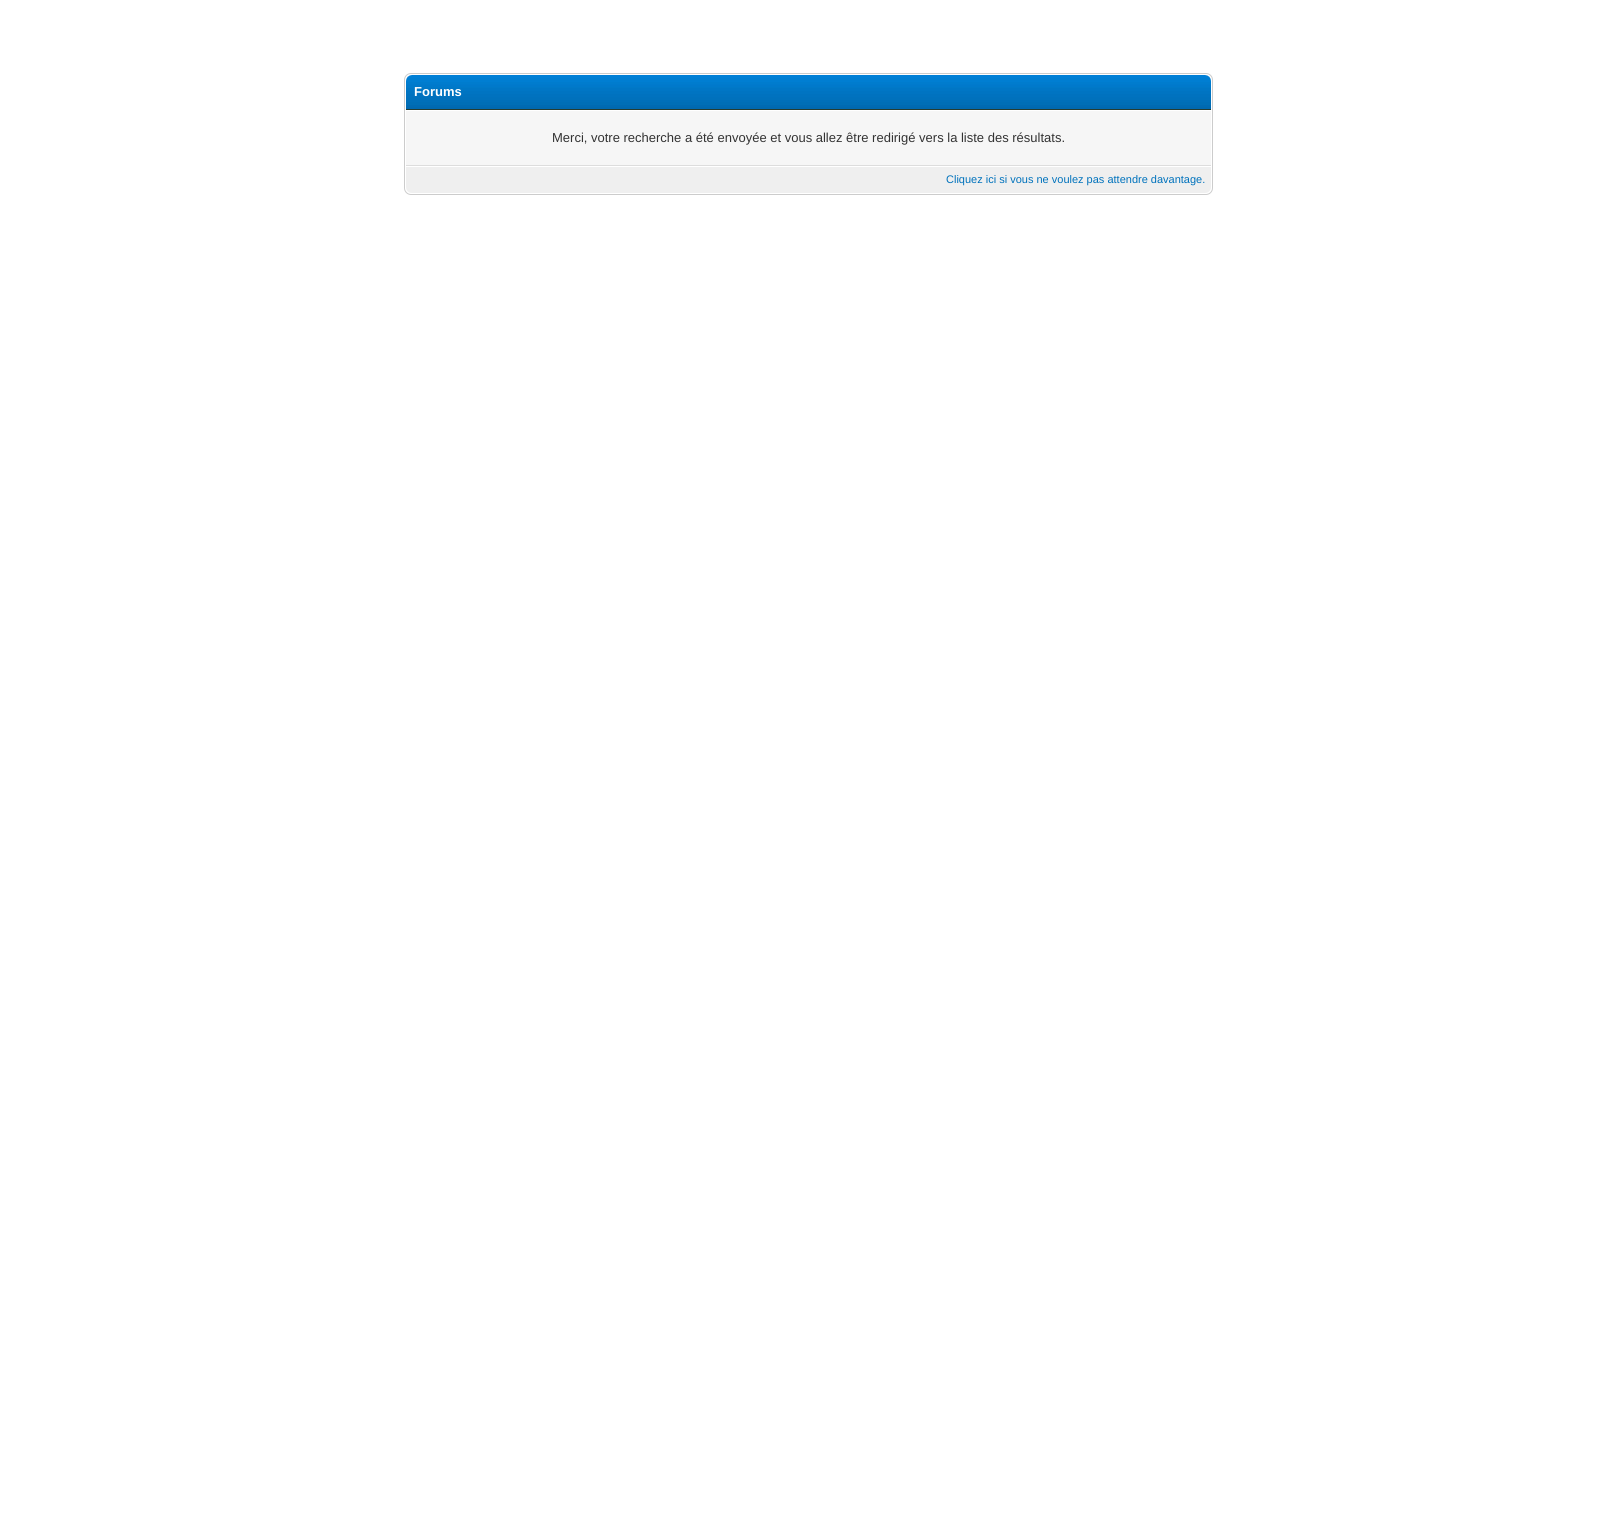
import math
import cairo

surface = cairo.ImageSurface(cairo.FORMAT_RGB24, 1617, 1523)
ctx = cairo.Context(surface)
options = cairo.FontOptions()
options.set_hint_metrics(cairo.HINT_METRICS_OFF)
options.set_hint_style(cairo.HINT_STYLE_NONE)
ctx.set_font_options(options)
ctx.set_miter_limit(4)


def round_rect(x, y, w, h, r):
    ctx.new_sub_path()
    for i, (u, v) in enumerate([(x + w - r, y + h - r), (x + r, y + h - r), (x + r, y + r), (x + w - r, y + r)]):
        ctx.arc(u, v, r, i * math.pi / 2, (i + 1) * math.pi / 2)
    ctx.close_path()


def picture(path, x, y, w, h):
    ctx.save()
    ctx.set_source_surface(cairo.ImageSurface.create_from_png(path), x, y)
    ctx.rectangle(x, y, w, h)
    ctx.fill()
    ctx.restore()


ctx.set_source_rgb(1, 1, 1)
ctx.paint()
round_rect(404.5, 73.5, 808, 121, 6.5)
ctx.set_source_rgb(0.8, 0.8, 0.8)
ctx.set_line_width(1)
ctx.stroke()
picture("img1.png", 406, 75, 805, 34)
ctx.set_source_rgb(0.149, 0.235, 0.188)
ctx.rectangle(406, 109, 805, 1)
ctx.fill()
ctx.select_font_face("Liberation Sans", cairo.FONT_SLANT_NORMAL, cairo.FONT_WEIGHT_BOLD)
ctx.set_font_size(13)
ctx.set_source_rgb(1, 1, 1)
ctx.move_to(414, 96)
ctx.show_text("Forums")
ctx.set_source_rgb(0.961, 0.961, 0.961)
ctx.rectangle(406, 111, 805, 54)
ctx.fill()
ctx.set_source_rgb(0.867, 0.867, 0.867)
ctx.rectangle(406, 165, 805, 1)
ctx.fill()
ctx.select_font_face("Liberation Sans")
ctx.set_source_rgb(0.2, 0.2, 0.2)
ctx.move_to(552, 142)
ctx.show_text("Merci, votre recherche a été envoyée et vous allez être redirigé vers la liste des résultats.")
ctx.set_source_rgb(0.937, 0.937, 0.937)
ctx.new_path()
ctx.move_to(406, 166)
ctx.line_to(1211, 166)
ctx.line_to(1211, 187)
ctx.curve_to(1211, 190.5, 1208.5, 193, 1205, 193)
ctx.line_to(412, 193)
ctx.curve_to(408.5, 193, 406, 190.5, 406, 187)
ctx.close_path()
ctx.fill()
ctx.set_source_rgb(1, 1, 1)
ctx.rectangle(406, 166, 805, 1)
ctx.fill()
ctx.set_font_size(11)
ctx.set_source_rgb(0, 0.447, 0.737)
ctx.move_to(946, 183)
ctx.show_text("Cliquez ici si vous ne voulez pas attendre davantage.")
surface.write_to_png("page.png")
